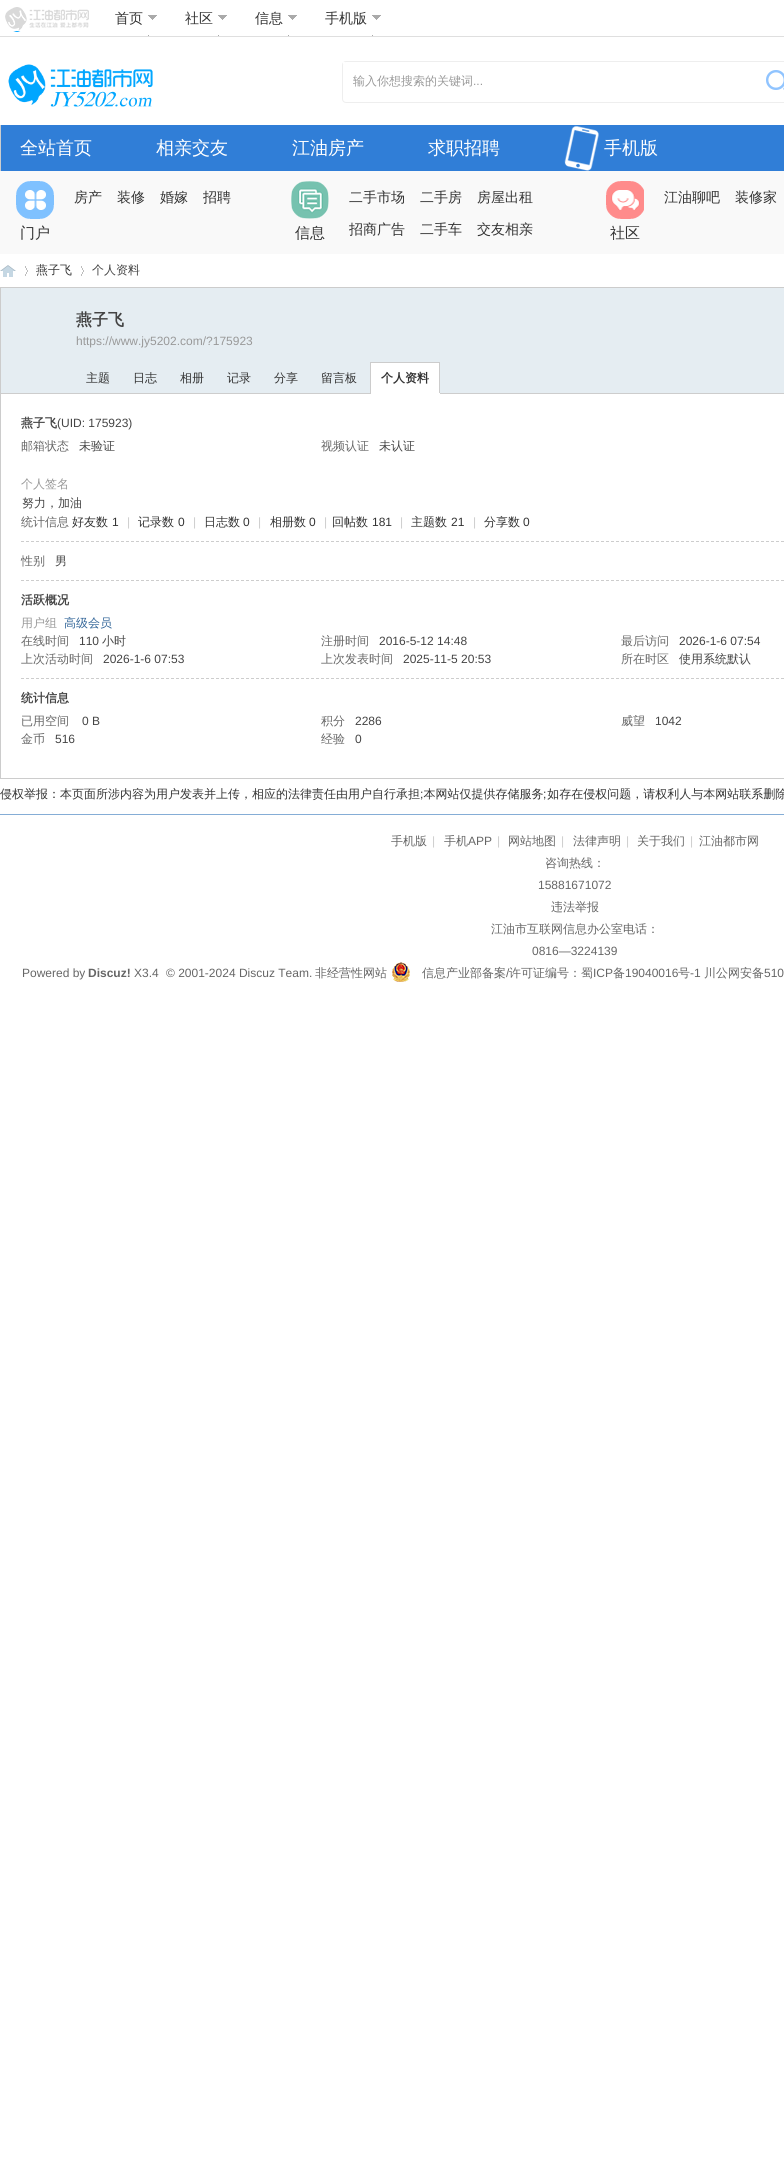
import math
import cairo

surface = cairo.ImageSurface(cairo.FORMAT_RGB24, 784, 2173)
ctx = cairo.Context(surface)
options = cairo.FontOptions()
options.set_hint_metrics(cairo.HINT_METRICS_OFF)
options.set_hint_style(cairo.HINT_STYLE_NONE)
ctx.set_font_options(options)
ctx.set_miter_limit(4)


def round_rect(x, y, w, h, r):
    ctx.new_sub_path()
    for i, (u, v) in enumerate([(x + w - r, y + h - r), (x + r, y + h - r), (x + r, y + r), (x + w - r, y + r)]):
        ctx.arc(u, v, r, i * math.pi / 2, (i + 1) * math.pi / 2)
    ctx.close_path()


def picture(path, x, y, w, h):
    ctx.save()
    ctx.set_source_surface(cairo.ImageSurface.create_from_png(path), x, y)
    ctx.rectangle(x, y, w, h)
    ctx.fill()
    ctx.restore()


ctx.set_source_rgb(1, 1, 1)
ctx.paint()
ctx.set_source_rgb(0.875, 0.875, 0.875)
ctx.rectangle(0, 36, 784, 1)
ctx.fill()
picture("img1.png", 5, 7, 84, 25)
ctx.select_font_face("WenQuanYi Zen Hei Medium")
ctx.set_font_size(14)
ctx.set_source_rgb(0.2, 0.2, 0.2)
ctx.move_to(115, 23)
ctx.show_text("首页")
picture("img2.png", 148, 15, 9, 21)
ctx.move_to(185, 23)
ctx.show_text("社区")
picture("img2.png", 218, 15, 9, 21)
ctx.move_to(255, 23)
ctx.show_text("信息")
picture("img2.png", 288, 15, 9, 21)
ctx.move_to(325, 23)
ctx.show_text("手机版")
picture("img2.png", 372, 15, 9, 21)
picture("img3.png", 8, 64, 145, 43)
round_rect(342.5, 61.5, 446, 41, 3.5)
ctx.set_source_rgb(0.933, 0.933, 0.933)
ctx.set_line_width(1)
ctx.stroke()
ctx.set_source_rgb(1, 1, 1)
ctx.rectangle(343, 62, 2, 2)
ctx.fill()
ctx.set_font_size(12)
ctx.set_source_rgb(0.6, 0.6, 0.6)
ctx.move_to(353, 85)
ctx.show_text("输入你想搜索的关键词")
ctx.select_font_face("Liberation Sans")
ctx.move_to(473, 85)
ctx.show_text("...")
picture("img4.png", 766, 70, 18, 20)
ctx.set_source_rgb(0.188, 0.494, 0.843)
ctx.rectangle(1, 125, 783, 46)
ctx.fill()
ctx.set_source_rgb(0.804, 0.804, 0.804)
ctx.rectangle(0, 125, 1, 46)
ctx.fill()
ctx.select_font_face("WenQuanYi Zen Hei Medium")
ctx.set_font_size(18)
ctx.set_source_rgb(1, 1, 1)
ctx.move_to(20, 154)
ctx.show_text("全站首页")
ctx.move_to(156, 154)
ctx.show_text("相亲交友")
ctx.move_to(292, 154)
ctx.show_text("江油房产")
ctx.move_to(428, 154)
ctx.show_text("求职招聘")
picture("img5.png", 564, 125, 35, 46)
ctx.move_to(604, 154)
ctx.show_text("手机版")
ctx.set_source_rgb(0.973, 0.973, 0.973)
ctx.rectangle(0, 171, 784, 83)
ctx.fill()
ctx.set_font_size(14)
ctx.set_source_rgb(0.2, 0.2, 0.2)
ctx.move_to(74, 202)
ctx.show_text("房产")
ctx.move_to(117, 202)
ctx.show_text("装修")
ctx.move_to(160, 202)
ctx.show_text("婚嫁")
ctx.move_to(203, 202)
ctx.show_text("招聘")
picture("img6.png", 16, 181, 38, 38)
ctx.set_font_size(15)
ctx.move_to(20, 238)
ctx.show_text("门户")
picture("img7.png", 291, 181, 38, 38)
ctx.move_to(295, 238)
ctx.show_text("信息")
ctx.set_font_size(14)
ctx.move_to(349, 202)
ctx.show_text("二手市场")
ctx.move_to(420, 202)
ctx.show_text("二手房")
ctx.move_to(477, 202)
ctx.show_text("房屋出租")
ctx.move_to(349, 234)
ctx.show_text("招商广告")
ctx.move_to(420, 234)
ctx.show_text("二手车")
ctx.move_to(477, 234)
ctx.show_text("交友相亲")
ctx.move_to(664, 202)
ctx.show_text("江油聊吧")
ctx.move_to(735, 202)
ctx.show_text("装修家")
picture("img8.png", 606, 181, 38, 38)
ctx.set_font_size(15)
ctx.move_to(610, 238)
ctx.show_text("社区")
picture("img9.png", 0, 265, 16, 12)
picture("img10.png", 25, 266, 3, 10)
ctx.set_font_size(12)
ctx.move_to(36, 274)
ctx.show_text("燕子飞")
picture("img10.png", 81, 266, 3, 10)
ctx.set_source_rgb(0.267, 0.267, 0.267)
ctx.move_to(92, 274)
ctx.show_text("个人资料")
ctx.set_source_rgb(0.898, 0.929, 0.949)
ctx.rectangle(1, 288, 783, 105)
ctx.fill()
ctx.set_source_rgb(0.8, 0.8, 0.8)
ctx.rectangle(0, 287, 784, 1)
ctx.fill()
ctx.rectangle(0, 287, 1, 107)
ctx.fill()
ctx.select_font_face("WenQuanYi Zen Hei", cairo.FONT_SLANT_NORMAL, cairo.FONT_WEIGHT_BOLD)
ctx.set_font_size(16)
ctx.set_source_rgb(0.267, 0.267, 0.267)
ctx.move_to(76, 325)
ctx.show_text("燕子飞")
ctx.select_font_face("Liberation Sans")
ctx.set_font_size(12)
ctx.set_source_rgb(0.6, 0.6, 0.6)
ctx.move_to(76, 345)
ctx.show_text("https://www.jy5202.com/?175923")
ctx.set_source_rgb(0.804, 0.804, 0.804)
ctx.rectangle(1, 393, 783, 1)
ctx.fill()
ctx.select_font_face("WenQuanYi Zen Hei Medium")
ctx.set_source_rgb(0.2, 0.2, 0.2)
ctx.move_to(86, 382)
ctx.show_text("主题")
ctx.move_to(133, 382)
ctx.show_text("日志")
ctx.move_to(180, 382)
ctx.show_text("相册")
ctx.move_to(227, 382)
ctx.show_text("记录")
ctx.move_to(274, 382)
ctx.show_text("分享")
ctx.move_to(321, 382)
ctx.show_text("留言板")
ctx.set_source_rgb(1, 1, 1)
ctx.rectangle(371, 363, 68, 30)
ctx.fill()
ctx.set_source_rgb(0.8, 0.8, 0.8)
ctx.rectangle(370, 362, 70, 1)
ctx.fill()
ctx.rectangle(439, 362, 1, 32)
ctx.fill()
ctx.set_source_rgb(1, 1, 1)
ctx.rectangle(370, 393, 70, 1)
ctx.fill()
ctx.set_source_rgb(0.8, 0.8, 0.8)
ctx.rectangle(370, 362, 1, 32)
ctx.fill()
ctx.select_font_face("WenQuanYi Zen Hei", cairo.FONT_SLANT_NORMAL, cairo.FONT_WEIGHT_BOLD)
ctx.set_source_rgb(0.2, 0.2, 0.2)
ctx.move_to(381, 382)
ctx.show_text("个人资料")
ctx.set_source_rgb(0.8, 0.8, 0.8)
ctx.rectangle(0, 778, 784, 1)
ctx.fill()
ctx.rectangle(0, 394, 1, 385)
ctx.fill()
ctx.new_path()
ctx.move_to(21, 580.5)
ctx.line_to(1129, 580.5)
ctx.set_source_rgb(0.804, 0.804, 0.804)
ctx.set_dash([3, 2])
ctx.stroke()
ctx.set_source_rgb(0.267, 0.267, 0.267)
ctx.move_to(21, 427)
ctx.show_text("燕子飞")
ctx.select_font_face("Liberation Sans")
ctx.move_to(57, 427)
ctx.show_text("(UID: 175923)")
ctx.select_font_face("WenQuanYi Zen Hei Medium")
ctx.set_source_rgb(0.4, 0.4, 0.4)
ctx.move_to(21, 450)
ctx.show_text("邮箱状态")
ctx.set_source_rgb(0.267, 0.267, 0.267)
ctx.move_to(79, 450)
ctx.show_text("未验证")
ctx.set_source_rgb(0.4, 0.4, 0.4)
ctx.move_to(321, 450)
ctx.show_text("视频认证")
ctx.set_source_rgb(0.267, 0.267, 0.267)
ctx.move_to(379, 450)
ctx.show_text("未认证")
ctx.set_source_rgb(0.6, 0.6, 0.6)
ctx.move_to(21, 488)
ctx.show_text("个人签名")
ctx.set_source_rgb(0.267, 0.267, 0.267)
ctx.move_to(22, 507)
ctx.show_text("努力，加油")
ctx.new_path()
ctx.move_to(21, 541.5)
ctx.line_to(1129, 541.5)
ctx.set_source_rgb(0.804, 0.804, 0.804)
ctx.stroke()
ctx.set_source_rgb(0.4, 0.4, 0.4)
ctx.move_to(21, 526)
ctx.show_text("统计信息")
ctx.set_source_rgb(0.2, 0.2, 0.2)
ctx.move_to(72, 526)
ctx.show_text("好友数")
ctx.select_font_face("Liberation Sans")
ctx.move_to(112, 526)
ctx.show_text("1")
ctx.set_source_rgb(0.8, 0.8, 0.8)
ctx.move_to(127, 526)
ctx.show_text("|")
ctx.select_font_face("WenQuanYi Zen Hei Medium")
ctx.set_source_rgb(0.2, 0.2, 0.2)
ctx.move_to(138, 526)
ctx.show_text("记录数")
ctx.select_font_face("Liberation Sans")
ctx.move_to(178, 526)
ctx.show_text("0")
ctx.set_source_rgb(0.8, 0.8, 0.8)
ctx.move_to(193, 526)
ctx.show_text("|")
ctx.select_font_face("WenQuanYi Zen Hei Medium")
ctx.set_source_rgb(0.2, 0.2, 0.2)
ctx.move_to(204, 526)
ctx.show_text("日志数")
ctx.select_font_face("Liberation Sans")
ctx.move_to(243, 526)
ctx.show_text("0")
ctx.set_source_rgb(0.8, 0.8, 0.8)
ctx.move_to(258, 526)
ctx.show_text("|")
ctx.select_font_face("WenQuanYi Zen Hei Medium")
ctx.set_source_rgb(0.2, 0.2, 0.2)
ctx.move_to(270, 526)
ctx.show_text("相册数")
ctx.select_font_face("Liberation Sans")
ctx.move_to(309, 526)
ctx.show_text("0")
ctx.set_source_rgb(0.8, 0.8, 0.8)
ctx.move_to(324, 526)
ctx.show_text("|")
ctx.select_font_face("WenQuanYi Zen Hei Medium")
ctx.set_source_rgb(0.2, 0.2, 0.2)
ctx.move_to(332, 526)
ctx.show_text("回帖数")
ctx.select_font_face("Liberation Sans")
ctx.move_to(372, 526)
ctx.show_text("181")
ctx.set_source_rgb(0.8, 0.8, 0.8)
ctx.move_to(400, 526)
ctx.show_text("|")
ctx.select_font_face("WenQuanYi Zen Hei Medium")
ctx.set_source_rgb(0.2, 0.2, 0.2)
ctx.move_to(411, 526)
ctx.show_text("主题数")
ctx.select_font_face("Liberation Sans")
ctx.move_to(451, 526)
ctx.show_text("21")
ctx.set_source_rgb(0.8, 0.8, 0.8)
ctx.move_to(473, 526)
ctx.show_text("|")
ctx.select_font_face("WenQuanYi Zen Hei Medium")
ctx.set_source_rgb(0.2, 0.2, 0.2)
ctx.move_to(484, 526)
ctx.show_text("分享数")
ctx.select_font_face("Liberation Sans")
ctx.move_to(523, 526)
ctx.show_text("0")
ctx.select_font_face("WenQuanYi Zen Hei Medium")
ctx.set_source_rgb(0.4, 0.4, 0.4)
ctx.move_to(21, 565)
ctx.show_text("性别")
ctx.set_source_rgb(0.267, 0.267, 0.267)
ctx.move_to(55, 565)
ctx.show_text("男")
ctx.new_path()
ctx.move_to(21, 678.5)
ctx.line_to(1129, 678.5)
ctx.set_source_rgb(0.804, 0.804, 0.804)
ctx.stroke()
ctx.select_font_face("WenQuanYi Zen Hei", cairo.FONT_SLANT_NORMAL, cairo.FONT_WEIGHT_BOLD)
ctx.set_source_rgb(0.267, 0.267, 0.267)
ctx.move_to(21, 604)
ctx.show_text("活跃概况")
ctx.select_font_face("WenQuanYi Zen Hei Medium")
ctx.set_source_rgb(0.6, 0.6, 0.6)
ctx.move_to(21, 627)
ctx.show_text("用户组")
ctx.set_source_rgb(0.2, 0.4, 0.6)
ctx.move_to(64, 627)
ctx.show_text("高级会员")
ctx.set_source_rgb(0.4, 0.4, 0.4)
ctx.move_to(21, 645)
ctx.show_text("在线时间")
ctx.select_font_face("Liberation Sans")
ctx.set_source_rgb(0.267, 0.267, 0.267)
ctx.move_to(79, 645)
ctx.show_text("110")
ctx.select_font_face("WenQuanYi Zen Hei Medium")
ctx.move_to(102, 645)
ctx.show_text("小时")
ctx.set_source_rgb(0.4, 0.4, 0.4)
ctx.move_to(321, 645)
ctx.show_text("注册时间")
ctx.select_font_face("Liberation Sans")
ctx.set_source_rgb(0.267, 0.267, 0.267)
ctx.move_to(379, 645)
ctx.show_text("2016-5-12 14:48")
ctx.select_font_face("WenQuanYi Zen Hei Medium")
ctx.set_source_rgb(0.4, 0.4, 0.4)
ctx.move_to(621, 645)
ctx.show_text("最后访问")
ctx.select_font_face("Liberation Sans")
ctx.set_source_rgb(0.267, 0.267, 0.267)
ctx.move_to(679, 645)
ctx.show_text("2026-1-6 07:54")
ctx.select_font_face("WenQuanYi Zen Hei Medium")
ctx.set_source_rgb(0.4, 0.4, 0.4)
ctx.move_to(21, 663)
ctx.show_text("上次活动时间")
ctx.select_font_face("Liberation Sans")
ctx.set_source_rgb(0.267, 0.267, 0.267)
ctx.move_to(103, 663)
ctx.show_text("2026-1-6 07:53")
ctx.select_font_face("WenQuanYi Zen Hei Medium")
ctx.set_source_rgb(0.4, 0.4, 0.4)
ctx.move_to(321, 663)
ctx.show_text("上次发表时间")
ctx.select_font_face("Liberation Sans")
ctx.set_source_rgb(0.267, 0.267, 0.267)
ctx.move_to(403, 663)
ctx.show_text("2025-11-5 20:53")
ctx.select_font_face("WenQuanYi Zen Hei Medium")
ctx.set_source_rgb(0.4, 0.4, 0.4)
ctx.move_to(621, 663)
ctx.show_text("所在时区")
ctx.set_source_rgb(0.267, 0.267, 0.267)
ctx.move_to(679, 663)
ctx.show_text("使用系统默认")
ctx.select_font_face("WenQuanYi Zen Hei", cairo.FONT_SLANT_NORMAL, cairo.FONT_WEIGHT_BOLD)
ctx.move_to(21, 702)
ctx.show_text("统计信息")
ctx.select_font_face("WenQuanYi Zen Hei Medium")
ctx.set_source_rgb(0.4, 0.4, 0.4)
ctx.move_to(21, 725)
ctx.show_text("已用空间")
ctx.select_font_face("Liberation Sans")
ctx.set_source_rgb(0.267, 0.267, 0.267)
ctx.move_to(82, 725)
ctx.show_text("0 B")
ctx.select_font_face("WenQuanYi Zen Hei Medium")
ctx.set_source_rgb(0.4, 0.4, 0.4)
ctx.move_to(321, 725)
ctx.show_text("积分")
ctx.select_font_face("Liberation Sans")
ctx.set_source_rgb(0.267, 0.267, 0.267)
ctx.move_to(355, 725)
ctx.show_text("2286")
ctx.select_font_face("WenQuanYi Zen Hei Medium")
ctx.set_source_rgb(0.4, 0.4, 0.4)
ctx.move_to(621, 725)
ctx.show_text("威望")
ctx.select_font_face("Liberation Sans")
ctx.set_source_rgb(0.267, 0.267, 0.267)
ctx.move_to(655, 725)
ctx.show_text("1042")
ctx.select_font_face("WenQuanYi Zen Hei Medium")
ctx.set_source_rgb(0.4, 0.4, 0.4)
ctx.move_to(21, 743)
ctx.show_text("金币")
ctx.select_font_face("Liberation Sans")
ctx.set_source_rgb(0.267, 0.267, 0.267)
ctx.move_to(55, 743)
ctx.show_text("516")
ctx.select_font_face("WenQuanYi Zen Hei Medium")
ctx.set_source_rgb(0.4, 0.4, 0.4)
ctx.move_to(321, 743)
ctx.show_text("经验")
ctx.select_font_face("Liberation Sans")
ctx.set_source_rgb(0.267, 0.267, 0.267)
ctx.move_to(355, 743)
ctx.show_text("0")
ctx.select_font_face("WenQuanYi Zen Hei Medium")
ctx.set_source_rgb(0.2, 0.2, 0.2)
ctx.move_to(0, 798)
ctx.show_text("侵权举报：本页面所涉内容为用户发表并上传，相应的法律责任由用户自行承担 本网站仅提供存储服务 如存在侵权问题，请权利人与本网站联系删除")
ctx.select_font_face("Liberation Sans")
ctx.move_to(420, 798)
ctx.show_text(";")
ctx.move_to(543, 798)
ctx.show_text(";")
ctx.set_source_rgb(0.522, 0.678, 0.839)
ctx.rectangle(0, 814, 784, 1)
ctx.fill()
ctx.select_font_face("WenQuanYi Zen Hei Medium")
ctx.set_source_rgb(0.4, 0.4, 0.4)
ctx.move_to(391, 845)
ctx.show_text("手机版")
ctx.select_font_face("Liberation Sans")
ctx.set_source_rgb(0.8, 0.8, 0.8)
ctx.move_to(432, 845)
ctx.show_text("|")
ctx.select_font_face("WenQuanYi Zen Hei Medium")
ctx.set_source_rgb(0.4, 0.4, 0.4)
ctx.move_to(444, 845)
ctx.show_text("手机")
ctx.select_font_face("Liberation Sans")
ctx.move_to(468, 845)
ctx.show_text("APP")
ctx.set_source_rgb(0.8, 0.8, 0.8)
ctx.move_to(497, 845)
ctx.show_text("|")
ctx.select_font_face("WenQuanYi Zen Hei Medium")
ctx.set_source_rgb(0.4, 0.4, 0.4)
ctx.move_to(508, 845)
ctx.show_text("网站地图")
ctx.select_font_face("Liberation Sans")
ctx.set_source_rgb(0.8, 0.8, 0.8)
ctx.move_to(561, 845)
ctx.show_text("|")
ctx.select_font_face("WenQuanYi Zen Hei Medium")
ctx.set_source_rgb(0.4, 0.4, 0.4)
ctx.move_to(573, 845)
ctx.show_text("法律声明")
ctx.select_font_face("Liberation Sans")
ctx.set_source_rgb(0.8, 0.8, 0.8)
ctx.move_to(626, 845)
ctx.show_text("|")
ctx.select_font_face("WenQuanYi Zen Hei Medium")
ctx.set_source_rgb(0.4, 0.4, 0.4)
ctx.move_to(637, 845)
ctx.show_text("关于我们")
ctx.select_font_face("Liberation Sans")
ctx.set_source_rgb(0.8, 0.8, 0.8)
ctx.move_to(690, 845)
ctx.show_text("|")
ctx.select_font_face("WenQuanYi Zen Hei Medium")
ctx.set_source_rgb(0.4, 0.4, 0.4)
ctx.move_to(699, 845)
ctx.show_text("江油都市网")
ctx.move_to(545, 867)
ctx.show_text("咨询热线：")
ctx.select_font_face("Liberation Sans")
ctx.move_to(538, 889)
ctx.show_text("15881671072")
ctx.select_font_face("WenQuanYi Zen Hei Medium")
ctx.move_to(551, 911)
ctx.show_text("违法举报")
ctx.move_to(491, 933)
ctx.show_text("江油市互联网信息办公室电话：")
ctx.select_font_face("Liberation Sans")
ctx.move_to(532, 955)
ctx.show_text("0816—3224139")
ctx.move_to(22, 977)
ctx.show_text("Powered by")
ctx.select_font_face("Liberation Sans", cairo.FONT_SLANT_NORMAL, cairo.FONT_WEIGHT_BOLD)
ctx.move_to(88, 977)
ctx.show_text("Discuz!")
ctx.select_font_face("Liberation Sans")
ctx.move_to(134, 977)
ctx.show_text("X3.4")
ctx.move_to(166, 977)
ctx.show_text("© 2001-2024 Discuz Team.")
ctx.select_font_face("WenQuanYi Zen Hei Medium")
ctx.move_to(315, 977)
ctx.show_text("非经营性网站")
picture("img11.png", 392, 962, 18, 20)
ctx.move_to(422, 977)
ctx.show_text("信息产业部备案")
ctx.select_font_face("Liberation Sans")
ctx.move_to(506, 977)
ctx.show_text("/")
ctx.select_font_face("WenQuanYi Zen Hei Medium")
ctx.move_to(509, 977)
ctx.show_text("许可证编号：蜀")
ctx.select_font_face("Liberation Sans")
ctx.move_to(593, 977)
ctx.show_text("ICP")
ctx.select_font_face("WenQuanYi Zen Hei Medium")
ctx.move_to(613, 977)
ctx.show_text("备")
ctx.select_font_face("Liberation Sans")
ctx.move_to(625, 977)
ctx.show_text("19040016")
ctx.select_font_face("WenQuanYi Zen Hei Medium")
ctx.move_to(678, 977)
ctx.show_text("号")
ctx.select_font_face("Liberation Sans")
ctx.move_to(690, 977)
ctx.show_text("-1")
ctx.select_font_face("WenQuanYi Zen Hei Medium")
ctx.move_to(704, 977)
ctx.show_text("川公网安备")
ctx.select_font_face("Liberation Sans")
ctx.move_to(764, 977)
ctx.show_text("510")
surface.write_to_png("page.png")
